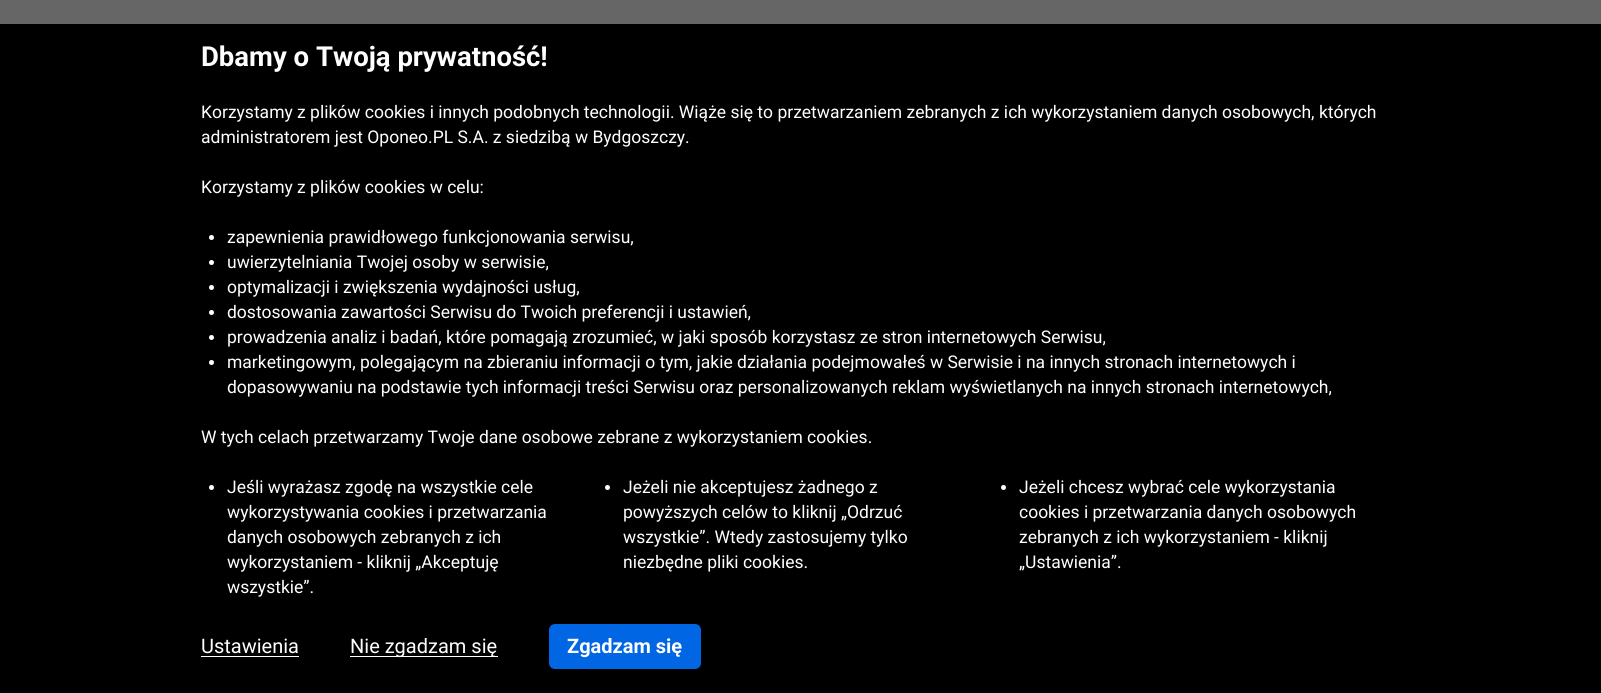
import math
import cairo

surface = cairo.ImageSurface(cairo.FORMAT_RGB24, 1601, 693)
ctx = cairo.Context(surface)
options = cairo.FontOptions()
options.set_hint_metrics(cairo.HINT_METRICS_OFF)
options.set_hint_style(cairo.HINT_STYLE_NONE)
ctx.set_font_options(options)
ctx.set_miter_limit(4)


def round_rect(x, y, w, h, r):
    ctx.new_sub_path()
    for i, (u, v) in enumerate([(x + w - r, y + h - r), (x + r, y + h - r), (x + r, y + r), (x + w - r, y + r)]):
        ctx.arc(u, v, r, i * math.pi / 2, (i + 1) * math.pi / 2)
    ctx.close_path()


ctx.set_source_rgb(0.4, 0.4, 0.4)
ctx.paint()
ctx.set_source_rgb(0, 0, 0)
ctx.rectangle(0, 24, 1601, 669)
ctx.fill()
ctx.select_font_face("Roboto", cairo.FONT_SLANT_NORMAL, cairo.FONT_WEIGHT_BOLD)
ctx.set_font_size(27.5)
ctx.set_source_rgb(1, 1, 1)
ctx.move_to(201, 66)
ctx.show_text("Dbamy o Twoją prywatność!")
ctx.select_font_face("Roboto")
ctx.set_font_size(17.5)
ctx.move_to(201, 118)
ctx.show_text("Korzystamy z plików cookies i innych podobnych technologii. Wiąże się to przetwarzaniem zebranych z ich wykorzystaniem danych osobowych, których")
ctx.move_to(201, 143)
ctx.show_text("administratorem jest Oponeo.PL S.A. z siedzibą w Bydgoszczy.")
ctx.move_to(201, 193)
ctx.show_text("Korzystamy z plików cookies w celu:")
ctx.new_path()
ctx.arc(211.5, 237.5, 2.5, 0, 2 * math.pi)
ctx.fill()
ctx.move_to(227, 243)
ctx.show_text("zapewnienia prawidłowego funkcjonowania serwisu,")
ctx.new_path()
ctx.arc(211.5, 262.5, 2.5, 0, 2 * math.pi)
ctx.fill()
ctx.move_to(227, 268)
ctx.show_text("uwierzytelniania Twojej osoby w serwisie,")
ctx.new_path()
ctx.arc(211.5, 287.5, 2.5, 0, 2 * math.pi)
ctx.fill()
ctx.move_to(227, 293)
ctx.show_text("optymalizacji i zwiększenia wydajności usług,")
ctx.new_path()
ctx.arc(211.5, 312.5, 2.5, 0, 2 * math.pi)
ctx.fill()
ctx.move_to(227, 318)
ctx.show_text("dostosowania zawartości Serwisu do Twoich preferencji i ustawień,")
ctx.new_path()
ctx.arc(211.5, 337.5, 2.5, 0, 2 * math.pi)
ctx.fill()
ctx.move_to(227, 343)
ctx.show_text("prowadzenia analiz i badań, które pomagają zrozumieć, w jaki sposób korzystasz ze stron internetowych Serwisu,")
ctx.new_path()
ctx.arc(211.5, 362.5, 2.5, 0, 2 * math.pi)
ctx.fill()
ctx.move_to(227, 368)
ctx.show_text("marketingowym, polegającym na zbieraniu informacji o tym, jakie działania podejmowałeś w Serwisie i na innych stronach internetowych i")
ctx.move_to(227, 393)
ctx.show_text("dopasowywaniu na podstawie tych informacji treści Serwisu oraz personalizowanych reklam wyświetlanych na innych stronach internetowych,")
ctx.move_to(201, 443)
ctx.show_text("W tych celach przetwarzamy Twoje dane osobowe zebrane z wykorzystaniem cookies.")
ctx.new_path()
ctx.arc(211.5, 487.5, 2.5, 0, 2 * math.pi)
ctx.fill()
ctx.move_to(227, 493)
ctx.show_text("Jeśli wyrażasz zgodę na wszystkie cele")
ctx.move_to(227, 518)
ctx.show_text("wykorzystywania cookies i przetwarzania")
ctx.move_to(227, 543)
ctx.show_text("danych osobowych zebranych z ich")
ctx.move_to(227, 568)
ctx.show_text("wykorzystaniem - kliknij „Akceptuję")
ctx.move_to(227, 593)
ctx.show_text("wszystkie”.")
ctx.new_path()
ctx.arc(607.5, 487.5, 2.5, 0, 2 * math.pi)
ctx.fill()
ctx.move_to(623, 493)
ctx.show_text("Jeżeli nie akceptujesz żadnego z")
ctx.move_to(623, 518)
ctx.show_text("powyższych celów to kliknij „Odrzuć")
ctx.move_to(623, 543)
ctx.show_text("wszystkie”. Wtedy zastosujemy tylko")
ctx.move_to(623, 568)
ctx.show_text("niezbędne pliki cookies.")
ctx.new_path()
ctx.arc(1003.5, 487.5, 2.5, 0, 2 * math.pi)
ctx.fill()
ctx.move_to(1019, 493)
ctx.show_text("Jeżeli chcesz wybrać cele wykorzystania")
ctx.move_to(1019, 518)
ctx.show_text("cookies i przetwarzania danych osobowych")
ctx.move_to(1019, 543)
ctx.show_text("zebranych z ich wykorzystaniem - kliknij")
ctx.move_to(1019, 568)
ctx.show_text("„Ustawienia”.")
ctx.set_font_size(20)
ctx.move_to(201, 653)
ctx.show_text("Ustawienia")
ctx.rectangle(201, 656, 98, 1)
ctx.fill()
ctx.rectangle(350, 656, 148, 1)
ctx.fill()
ctx.move_to(350, 653)
ctx.show_text("Nie zgadzam się")
ctx.set_source_rgb(0, 0.4, 0.89)
round_rect(549, 624, 152, 45, 6)
ctx.fill()
ctx.select_font_face("Roboto", cairo.FONT_SLANT_NORMAL, cairo.FONT_WEIGHT_BOLD)
ctx.set_source_rgb(1, 1, 1)
ctx.move_to(567, 653)
ctx.show_text("Zgadzam się")
surface.write_to_png("page.png")
